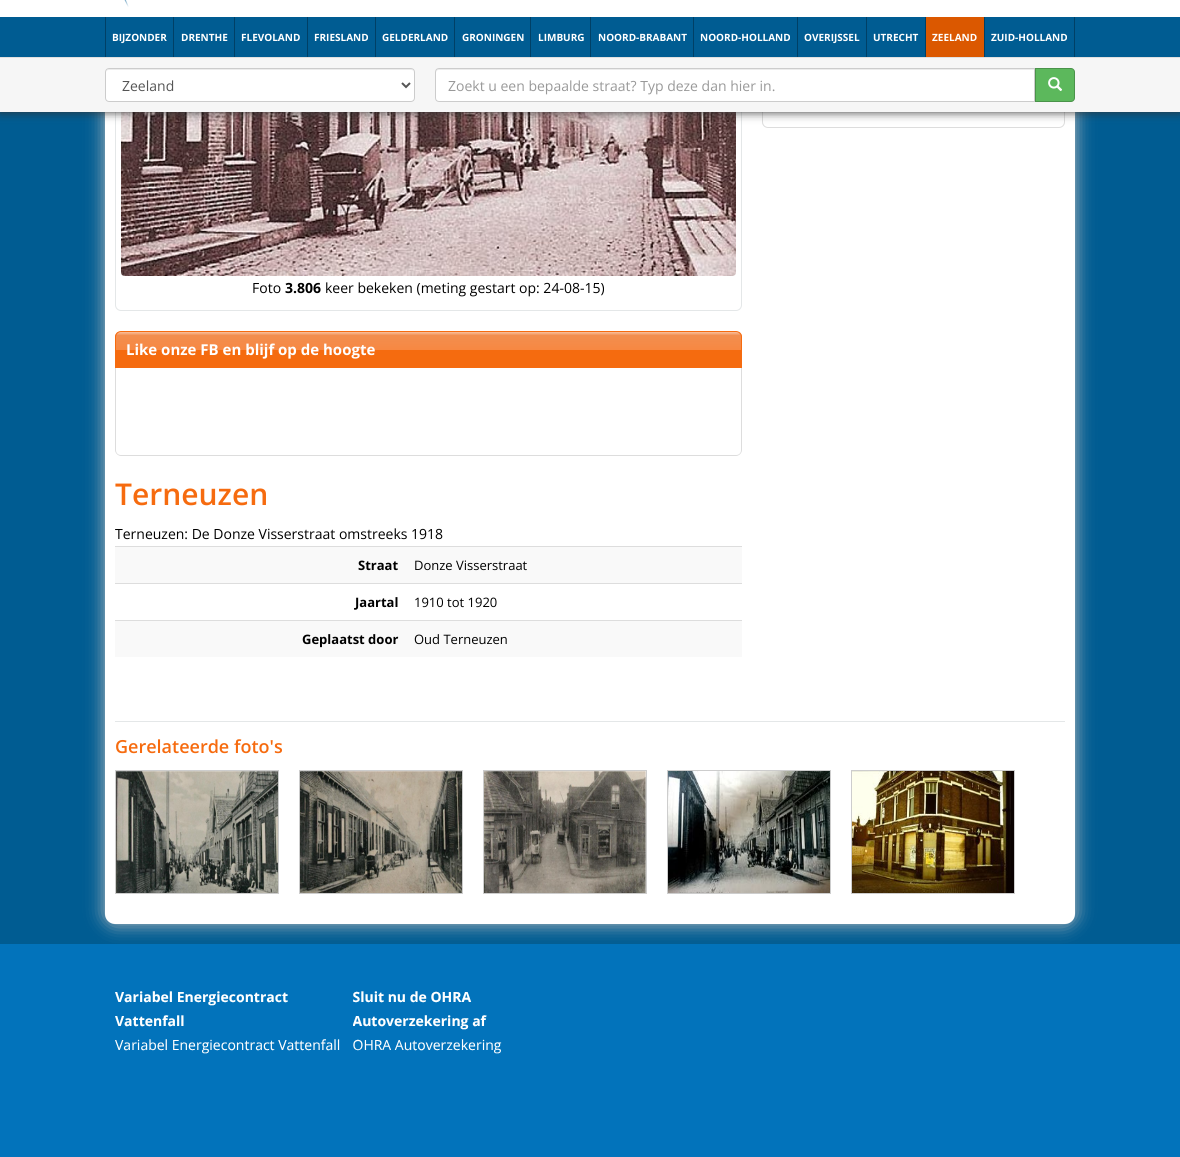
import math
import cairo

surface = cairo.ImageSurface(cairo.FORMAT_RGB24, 1180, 1157)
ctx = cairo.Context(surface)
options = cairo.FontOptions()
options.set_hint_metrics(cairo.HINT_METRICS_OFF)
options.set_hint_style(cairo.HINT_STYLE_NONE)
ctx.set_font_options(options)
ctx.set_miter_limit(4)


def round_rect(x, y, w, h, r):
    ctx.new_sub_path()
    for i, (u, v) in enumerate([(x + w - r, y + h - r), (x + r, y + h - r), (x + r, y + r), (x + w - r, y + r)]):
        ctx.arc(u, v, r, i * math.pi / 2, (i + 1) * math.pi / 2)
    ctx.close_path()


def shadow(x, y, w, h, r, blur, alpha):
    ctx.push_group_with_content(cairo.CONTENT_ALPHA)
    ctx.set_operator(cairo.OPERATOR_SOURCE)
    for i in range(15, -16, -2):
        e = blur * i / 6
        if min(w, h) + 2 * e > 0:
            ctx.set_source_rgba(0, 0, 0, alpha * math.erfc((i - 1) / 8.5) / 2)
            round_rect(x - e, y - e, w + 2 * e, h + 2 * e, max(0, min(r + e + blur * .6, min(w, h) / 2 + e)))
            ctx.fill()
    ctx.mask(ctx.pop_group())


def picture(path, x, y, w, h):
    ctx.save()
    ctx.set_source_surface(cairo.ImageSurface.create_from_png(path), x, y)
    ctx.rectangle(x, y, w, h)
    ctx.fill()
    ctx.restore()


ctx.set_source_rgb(0, 0.361, 0.573)
ctx.paint()
ctx.set_source_rgb(0.749, 0.749, 0.749)
shadow(105, -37, 970, 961, 10, 9, 1)
ctx.set_source_rgb(1, 1, 1)
round_rect(105, -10, 970, 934, 10)
ctx.fill()
round_rect(762.5, -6.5, 302, 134, 5.5)
ctx.set_source_rgb(0.867, 0.867, 0.867)
ctx.set_line_width(1)
ctx.stroke()
round_rect(115.5, -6.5, 626, 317, 5.5)
ctx.set_source_rgb(0.894, 0.906, 0.91)
ctx.stroke()
picture("img3.png", 121, 112, 615, 164)
ctx.set_source_rgb(0.2, 0.2, 0.2)
shadow(0, -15, 1180, 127, 0, 5, 1)
ctx.set_source_rgb(1, 1, 1)
ctx.rectangle(0, 0, 1180, 17)
ctx.fill()
picture("img1.png", 124, 0, 5, 7)
ctx.set_source_rgb(0, 0.361, 0.573)
ctx.rectangle(0, 17, 1180, 40)
ctx.fill()
ctx.set_source_rgb(0, 0.251, 0.4)
ctx.rectangle(105, 17, 1, 40)
ctx.fill()
ctx.rectangle(173, 17, 1, 40)
ctx.fill()
ctx.select_font_face("Open Sans", cairo.FONT_SLANT_NORMAL, cairo.FONT_WEIGHT_BOLD)
ctx.set_font_size(10)
ctx.set_source_rgb(1, 1, 1)
ctx.move_to(112, 41)
ctx.show_text("BIJZONDER")
ctx.set_source_rgb(0, 0.251, 0.4)
ctx.rectangle(234, 17, 1, 40)
ctx.fill()
ctx.set_source_rgb(1, 1, 1)
ctx.move_to(181, 41)
ctx.show_text("DRENTHE")
ctx.set_source_rgb(0, 0.251, 0.4)
ctx.rectangle(307, 17, 1, 40)
ctx.fill()
ctx.set_source_rgb(1, 1, 1)
ctx.move_to(241, 41)
ctx.show_text("FLEVOLAND")
ctx.set_source_rgb(0, 0.251, 0.4)
ctx.rectangle(375, 17, 1, 40)
ctx.fill()
ctx.set_source_rgb(1, 1, 1)
ctx.move_to(314, 41)
ctx.show_text("FRIESLAND")
ctx.set_source_rgb(0, 0.251, 0.4)
ctx.rectangle(454, 17, 1, 40)
ctx.fill()
ctx.set_source_rgb(1, 1, 1)
ctx.move_to(382, 41)
ctx.show_text("GELDERLAND")
ctx.set_source_rgb(0, 0.251, 0.4)
ctx.rectangle(530, 17, 1, 40)
ctx.fill()
ctx.set_source_rgb(1, 1, 1)
ctx.move_to(462, 41)
ctx.show_text("GRONINGEN")
ctx.set_source_rgb(0, 0.251, 0.4)
ctx.rectangle(590, 17, 1, 40)
ctx.fill()
ctx.set_source_rgb(1, 1, 1)
ctx.move_to(538, 41)
ctx.show_text("LIMBURG")
ctx.set_source_rgb(0, 0.251, 0.4)
ctx.rectangle(693, 17, 1, 40)
ctx.fill()
ctx.set_source_rgb(1, 1, 1)
ctx.move_to(598, 41)
ctx.show_text("NOORD-BRABANT")
ctx.set_source_rgb(0, 0.251, 0.4)
ctx.rectangle(797, 17, 1, 40)
ctx.fill()
ctx.set_source_rgb(1, 1, 1)
ctx.move_to(700, 41)
ctx.show_text("NOORD-HOLLAND")
ctx.set_source_rgb(0, 0.251, 0.4)
ctx.rectangle(866, 17, 1, 40)
ctx.fill()
ctx.set_source_rgb(1, 1, 1)
ctx.move_to(804, 41)
ctx.show_text("OVERIJSSEL")
ctx.set_source_rgb(0, 0.251, 0.4)
ctx.rectangle(925, 17, 1, 40)
ctx.fill()
ctx.set_source_rgb(1, 1, 1)
ctx.move_to(873, 41)
ctx.show_text("UTRECHT")
ctx.set_source_rgb(0, 0.251, 0.4)
ctx.rectangle(984, 17, 1, 40)
ctx.fill()
ctx.set_source_rgb(0.859, 0.345, 0)
ctx.rectangle(926, 17, 58, 40)
ctx.fill()
ctx.set_source_rgb(1, 1, 1)
ctx.move_to(932, 41)
ctx.show_text("ZEELAND")
ctx.set_source_rgb(0, 0.251, 0.4)
ctx.rectangle(1074, 17, 1, 40)
ctx.fill()
ctx.set_source_rgb(1, 1, 1)
ctx.move_to(991, 41)
ctx.show_text("ZUID-HOLLAND")
ctx.set_source_rgb(0.961, 0.961, 0.961)
ctx.rectangle(0, 58, 1180, 54)
ctx.fill()
ctx.set_source_rgb(0.878, 0.878, 0.878)
ctx.rectangle(0, 57, 1180, 1)
ctx.fill()
ctx.set_source_rgb(1, 1, 1)
round_rect(105, 68, 310, 34, 4)
ctx.fill()
ctx.set_source_rgb(0.925, 0.925, 0.925)
ctx.new_path()
ctx.move_to(109, 70)
ctx.line_to(411, 70)
ctx.curve_to(413, 70, 414, 71, 414, 73)
ctx.line_to(413, 70)
ctx.line_to(412, 69)
ctx.line_to(109, 69)
ctx.curve_to(107, 69, 106, 71, 106, 73)
ctx.curve_to(106, 71, 107, 70, 109, 70)
ctx.close_path()
ctx.fill()
round_rect(105.5, 68.5, 309, 33, 3.5)
ctx.set_source_rgb(0.8, 0.8, 0.8)
ctx.stroke()
ctx.new_path()
ctx.move_to(402, 83)
ctx.line_to(406, 87)
ctx.line_to(410, 83)
ctx.set_source_rgb(0.333, 0.333, 0.333)
ctx.set_line_width(2)
ctx.stroke()
ctx.select_font_face("Open Sans")
ctx.set_font_size(14)
ctx.move_to(122, 91)
ctx.show_text("Zeeland")
ctx.set_source_rgb(1, 1, 1)
ctx.new_path()
ctx.move_to(439, 68)
ctx.line_to(1035, 68)
ctx.line_to(1035, 102)
ctx.line_to(439, 102)
ctx.curve_to(437, 102, 435, 100, 435, 98)
ctx.line_to(435, 72)
ctx.curve_to(435, 70, 437, 68, 439, 68)
ctx.close_path()
ctx.fill()
ctx.set_source_rgb(0.925, 0.925, 0.925)
ctx.new_path()
ctx.move_to(439, 70)
ctx.line_to(1034, 70)
ctx.line_to(1034, 69)
ctx.line_to(439, 69)
ctx.curve_to(437, 69, 436, 70, 436, 72)
ctx.line_to(436, 73)
ctx.curve_to(436, 71, 437, 70, 439, 70)
ctx.close_path()
ctx.fill()
ctx.new_path()
ctx.move_to(439, 68.5)
ctx.line_to(1034.5, 68.5)
ctx.line_to(1034.5, 101.5)
ctx.line_to(439, 101.5)
ctx.curve_to(437, 101.5, 435.5, 100, 435.5, 98)
ctx.line_to(435.5, 72)
ctx.curve_to(435.5, 70, 437, 68.5, 439, 68.5)
ctx.close_path()
ctx.set_source_rgb(0.8, 0.8, 0.8)
ctx.set_line_width(1)
ctx.stroke()
ctx.set_source_rgb(0.6, 0.6, 0.6)
ctx.move_to(448, 91)
ctx.show_text("Zoekt u een bepaalde straat? Typ deze dan hier in.")
ctx.set_source_rgb(0.361, 0.722, 0.361)
ctx.new_path()
ctx.move_to(1035, 68)
ctx.line_to(1071, 68)
ctx.curve_to(1073, 68, 1075, 70, 1075, 72)
ctx.line_to(1075, 98)
ctx.curve_to(1075, 100, 1073, 102, 1071, 102)
ctx.line_to(1035, 102)
ctx.close_path()
ctx.fill()
ctx.new_path()
ctx.move_to(1035.5, 68.5)
ctx.line_to(1071, 68.5)
ctx.curve_to(1073, 68.5, 1074.5, 70, 1074.5, 72)
ctx.line_to(1074.5, 98)
ctx.curve_to(1074.5, 100, 1073, 101.5, 1071, 101.5)
ctx.line_to(1035.5, 101.5)
ctx.close_path()
ctx.set_source_rgba(0, 0, 0, 0.2)
ctx.stroke()
picture("img2.png", 1048, 77, 15, 14)
ctx.set_source_rgb(0, 0, 0)
ctx.move_to(252, 293)
ctx.show_text("Foto")
ctx.select_font_face("Open Sans", cairo.FONT_SLANT_NORMAL, cairo.FONT_WEIGHT_BOLD)
ctx.move_to(285, 293)
ctx.show_text("3.806")
ctx.select_font_face("Open Sans")
ctx.move_to(325, 293)
ctx.show_text("keer bekeken (meting gestart op: 24-08-15)")
ctx.save()
ctx.new_path()
ctx.move_to(121, 331)
ctx.line_to(736, 331)
ctx.curve_to(739.5, 331, 742, 333.5, 742, 337)
ctx.line_to(742, 368)
ctx.line_to(115, 368)
ctx.line_to(115, 337)
ctx.curve_to(115, 333.5, 117.5, 331, 121, 331)
ctx.close_path()
ctx.clip()
gradient = cairo.LinearGradient(429, 332, 429, 367)
gradient.add_color_stop_rgba(0, 0.976, 0.753, 0.616, 1)
gradient.add_color_stop_rgba(0.1, 0.949, 0.557, 0.31, 1)
gradient.add_color_stop_rgba(0.5, 0.969, 0.533, 0.259, 1)
gradient.add_color_stop_rgba(0.52, 0.961, 0.42, 0.059, 1)
ctx.set_source(gradient)
ctx.rectangle(115, 332, 627, 35)
ctx.fill()
ctx.restore()
ctx.new_path()
ctx.move_to(121, 331.5)
ctx.line_to(736, 331.5)
ctx.curve_to(739, 331.5, 741.5, 334, 741.5, 337)
ctx.line_to(741.5, 367.5)
ctx.line_to(115.5, 367.5)
ctx.line_to(115.5, 337)
ctx.curve_to(115.5, 334, 118, 331.5, 121, 331.5)
ctx.close_path()
ctx.set_source_rgb(0.961, 0.42, 0.059)
ctx.stroke()
ctx.select_font_face("Open Sans", cairo.FONT_SLANT_NORMAL, cairo.FONT_WEIGHT_BOLD)
ctx.set_font_size(15)
ctx.set_source_rgb(1, 1, 1)
ctx.move_to(126, 355)
ctx.show_text("Like onze FB en blijf op de hoogte")
ctx.set_source_rgb(0.867, 0.867, 0.867)
ctx.set_fill_rule(cairo.FILL_RULE_EVEN_ODD)
ctx.new_path()
ctx.move_to(115, 368)
ctx.line_to(742, 368)
ctx.line_to(742, 450)
ctx.curve_to(742, 453, 739, 456, 736, 456)
ctx.line_to(121, 456)
ctx.curve_to(118, 456, 115, 453, 115, 450)
ctx.close_path()
ctx.move_to(116, 368)
ctx.line_to(741, 368)
ctx.line_to(741, 450)
ctx.curve_to(741, 453, 739, 455, 736, 455)
ctx.line_to(121, 455)
ctx.curve_to(118, 455, 116, 453, 116, 450)
ctx.close_path()
ctx.fill()
ctx.select_font_face("Open Sans SemiBold")
ctx.set_font_size(30)
ctx.set_source_rgb(0.961, 0.42, 0.059)
ctx.move_to(115, 505)
ctx.show_text("Terneuzen")
ctx.select_font_face("Open Sans")
ctx.set_font_size(14)
ctx.set_source_rgb(0, 0, 0)
ctx.move_to(115, 539)
ctx.show_text("Terneuzen: De Donze Visserstraat omstreeks 1918")
ctx.set_source_rgb(0.976, 0.976, 0.976)
ctx.rectangle(115, 547, 627, 36)
ctx.fill()
ctx.select_font_face("Open Sans", cairo.FONT_SLANT_NORMAL, cairo.FONT_WEIGHT_BOLD)
ctx.set_font_size(13)
ctx.set_source_rgb(0, 0, 0)
ctx.move_to(358, 570)
ctx.show_text("Straat")
ctx.set_source_rgb(0.867, 0.867, 0.867)
ctx.rectangle(115, 546, 627, 1)
ctx.fill()
ctx.select_font_face("Open Sans")
ctx.set_source_rgb(0, 0, 0)
ctx.move_to(414, 570)
ctx.show_text("Donze Visserstraat")
ctx.select_font_face("Open Sans", cairo.FONT_SLANT_NORMAL, cairo.FONT_WEIGHT_BOLD)
ctx.move_to(355, 607)
ctx.show_text("Jaartal")
ctx.set_source_rgb(0.867, 0.867, 0.867)
ctx.rectangle(115, 583, 627, 1)
ctx.fill()
ctx.select_font_face("Open Sans")
ctx.set_source_rgb(0, 0, 0)
ctx.move_to(414, 607)
ctx.show_text("1910 tot 1920")
ctx.set_source_rgb(0.976, 0.976, 0.976)
ctx.rectangle(115, 621, 627, 36)
ctx.fill()
ctx.select_font_face("Open Sans", cairo.FONT_SLANT_NORMAL, cairo.FONT_WEIGHT_BOLD)
ctx.set_source_rgb(0, 0, 0)
ctx.move_to(302, 644)
ctx.show_text("Geplaatst door")
ctx.set_source_rgb(0.867, 0.867, 0.867)
ctx.rectangle(115, 620, 627, 1)
ctx.fill()
ctx.select_font_face("Open Sans")
ctx.set_source_rgb(0, 0, 0)
ctx.move_to(414, 644)
ctx.show_text("Oud Terneuzen")
ctx.set_source_rgb(0.894, 0.906, 0.91)
ctx.rectangle(115, 721, 950, 1)
ctx.fill()
ctx.select_font_face("Open Sans SemiBold")
ctx.set_font_size(18)
ctx.set_source_rgb(0.961, 0.42, 0.059)
ctx.move_to(115, 753)
ctx.show_text("Gerelateerde foto's")
ctx.rectangle(115.5, 770.5, 163, 123)
ctx.set_source_rgb(0.804, 0.804, 0.804)
ctx.stroke()
picture("img4.png", 116, 771, 162, 122)
ctx.rectangle(299.5, 770.5, 163, 123)
ctx.stroke()
picture("img5.png", 300, 771, 162, 122)
ctx.rectangle(483.5, 770.5, 163, 123)
ctx.stroke()
picture("img6.png", 484, 771, 162, 122)
ctx.rectangle(667.5, 770.5, 163, 123)
ctx.stroke()
picture("img7.png", 668, 771, 162, 122)
ctx.rectangle(851.5, 770.5, 163, 123)
ctx.stroke()
picture("img8.png", 852, 771, 162, 122)
ctx.set_source_rgb(0.008, 0.451, 0.733)
ctx.rectangle(0, 944, 1180, 213)
ctx.fill()
picture("img9.png", 115, 991, 387, 63)
surface.write_to_png("page.png")
